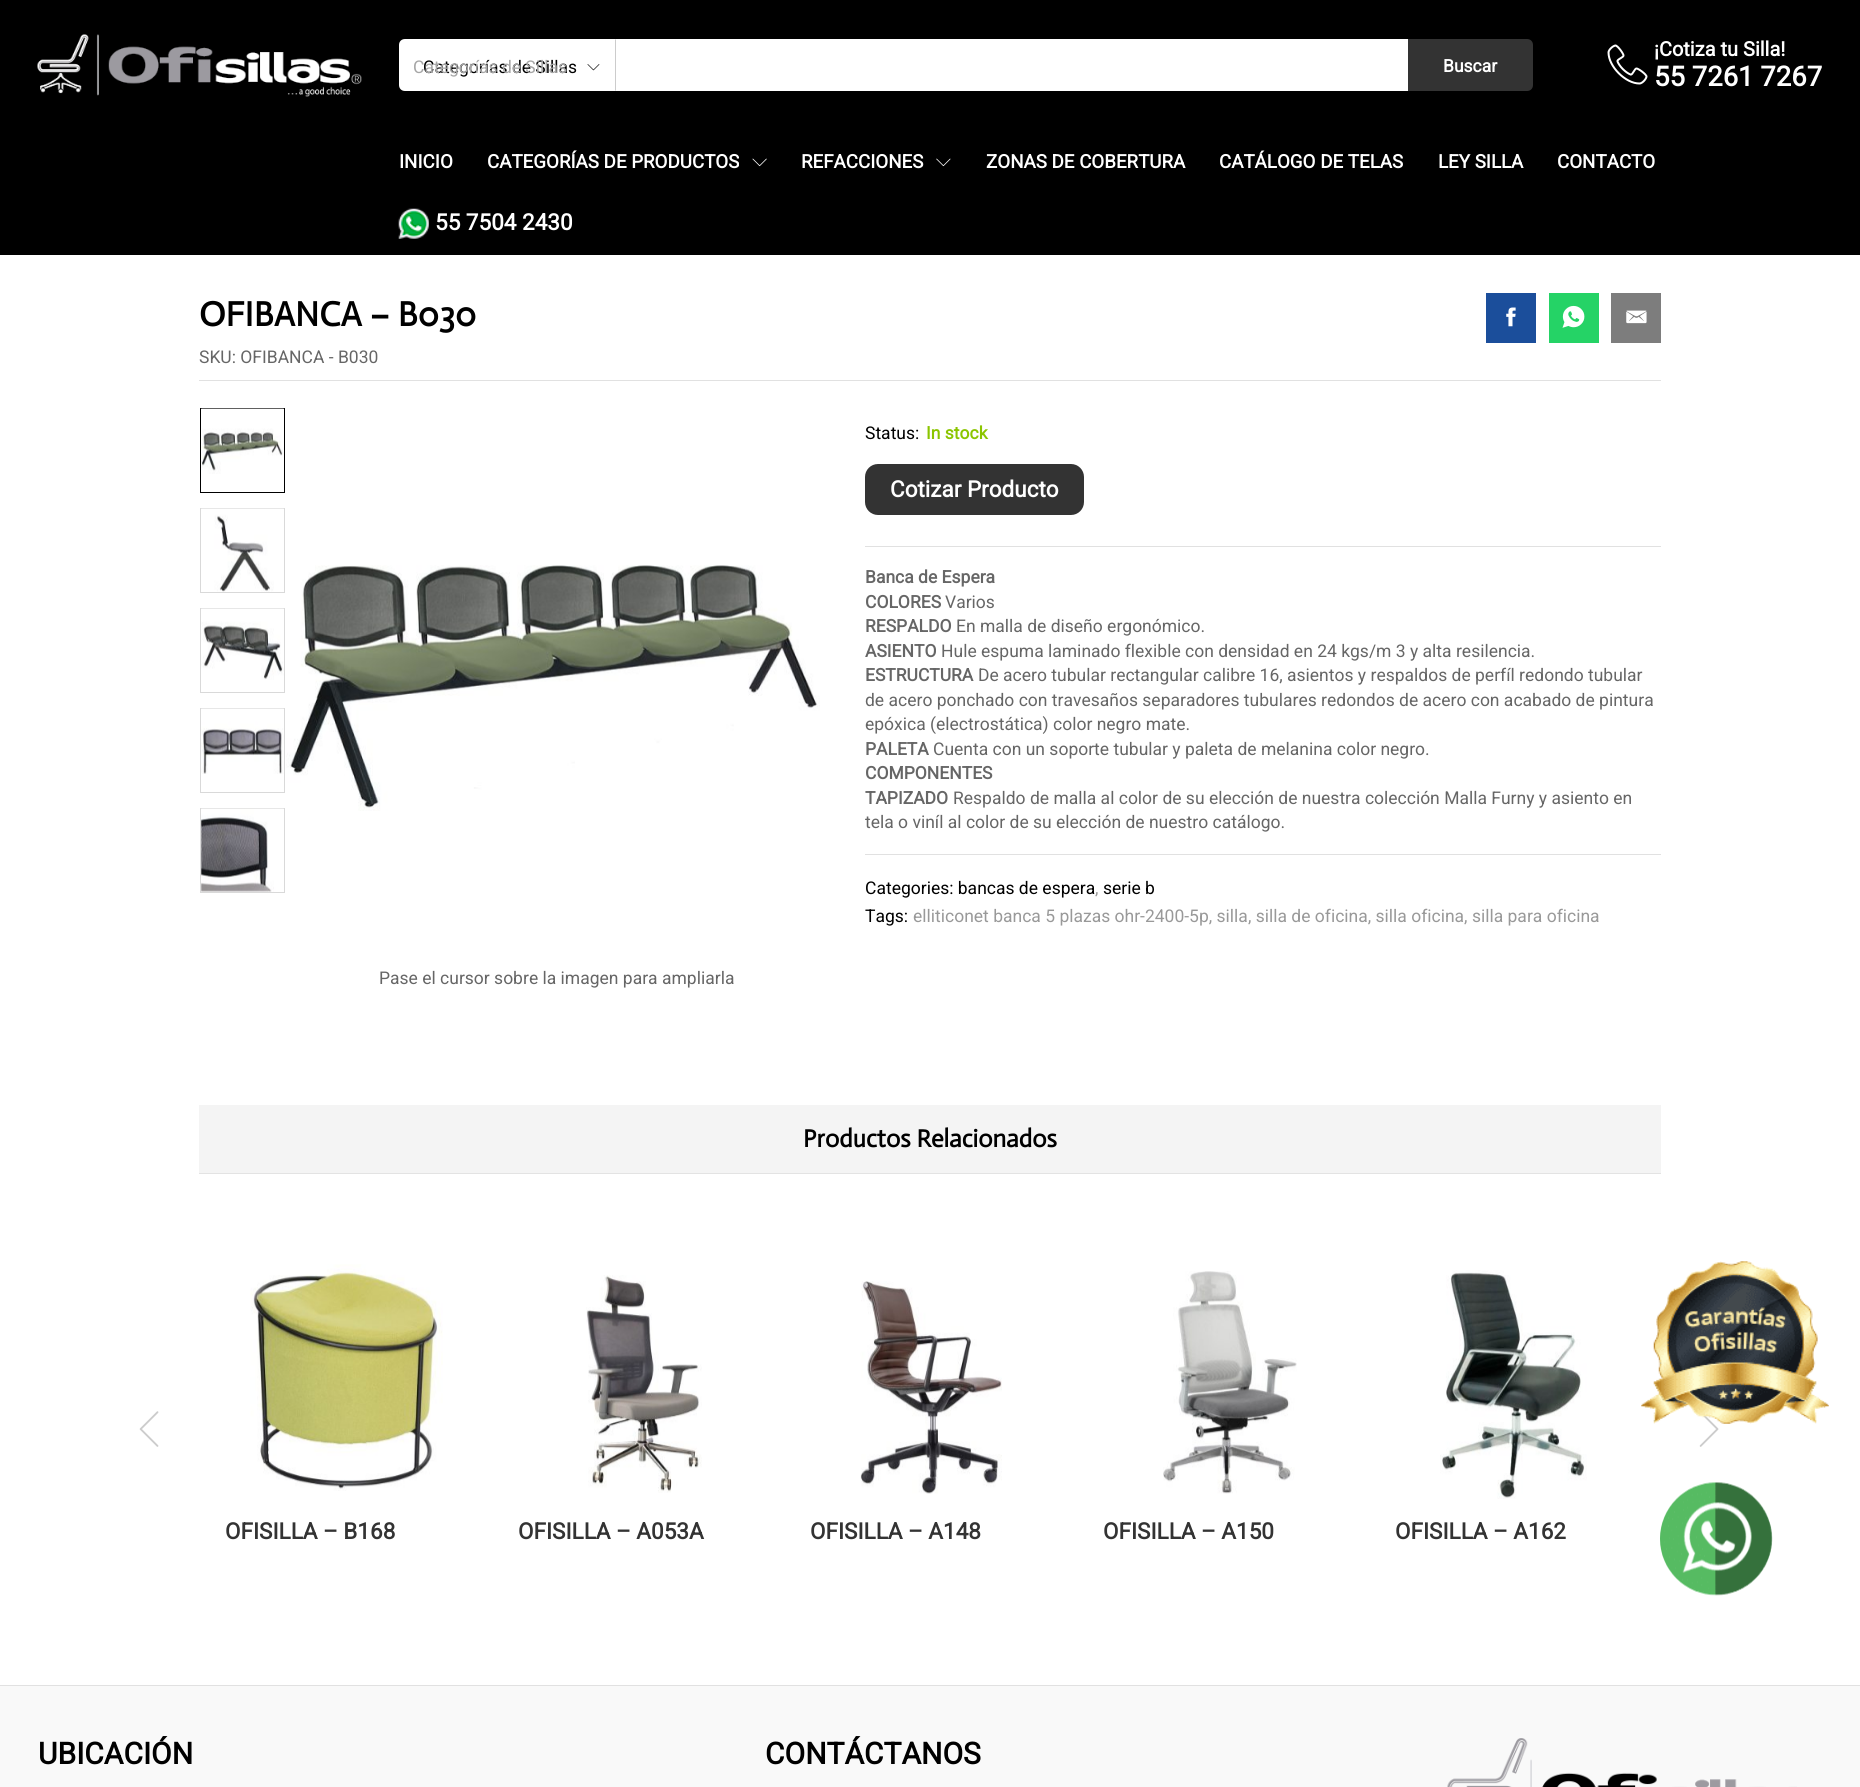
import math
import cairo

surface = cairo.ImageSurface(cairo.FORMAT_RGB24, 1860, 1787)
ctx = cairo.Context(surface)
options = cairo.FontOptions()
options.set_hint_metrics(cairo.HINT_METRICS_OFF)
options.set_hint_style(cairo.HINT_STYLE_NONE)
ctx.set_font_options(options)
ctx.set_miter_limit(4)


def round_rect(x, y, w, h, r):
    ctx.new_sub_path()
    for i, (u, v) in enumerate([(x + w - r, y + h - r), (x + r, y + h - r), (x + r, y + r), (x + w - r, y + r)]):
        ctx.arc(u, v, r, i * math.pi / 2, (i + 1) * math.pi / 2)
    ctx.close_path()


def picture(path, x, y, w, h):
    ctx.save()
    ctx.set_source_surface(cairo.ImageSurface.create_from_png(path), x, y)
    ctx.rectangle(x, y, w, h)
    ctx.fill()
    ctx.restore()


ctx.set_source_rgb(1, 1, 1)
ctx.paint()
ctx.set_source_rgb(0, 0, 0)
ctx.rectangle(0, 0, 1860, 255)
ctx.fill()
picture("img1.png", 37, 34, 325, 63)
ctx.set_source_rgb(1, 1, 1)
ctx.new_path()
ctx.move_to(405, 39)
ctx.line_to(616, 39)
ctx.line_to(616, 91)
ctx.line_to(405, 91)
ctx.curve_to(401.5, 91, 399, 88.5, 399, 85)
ctx.line_to(399, 45)
ctx.curve_to(399, 41.5, 401.5, 39, 405, 39)
ctx.close_path()
ctx.fill()
ctx.select_font_face("Roboto")
ctx.set_font_size(17.5)
ctx.set_source_rgb(0, 0, 0)
ctx.move_to(423, 73)
ctx.show_text("Categorías de Sillas")
ctx.set_source_rgb(0.651, 0.651, 0.651)
ctx.move_to(413, 73)
ctx.show_text("Categorías de Sillas")
ctx.set_source_rgb(0.8, 0.8, 0.8)
ctx.new_path()
ctx.move_to(616, 91)
ctx.line_to(616, 39)
ctx.line_to(615, 40)
ctx.line_to(615, 90)
ctx.close_path()
ctx.fill()
picture("img2.png", 587, 64, 13, 7)
ctx.set_source_rgb(1, 1, 1)
ctx.rectangle(616, 39, 792, 52)
ctx.fill()
ctx.set_source_rgb(0.2, 0.2, 0.2)
ctx.new_path()
ctx.move_to(1408, 39)
ctx.line_to(1527, 39)
ctx.curve_to(1530.5, 39, 1533, 41.5, 1533, 45)
ctx.line_to(1533, 85)
ctx.curve_to(1533, 88.5, 1530.5, 91, 1527, 91)
ctx.line_to(1408, 91)
ctx.close_path()
ctx.fill()
ctx.select_font_face("Roboto", cairo.FONT_SLANT_NORMAL, cairo.FONT_WEIGHT_BOLD)
ctx.set_source_rgb(1, 1, 1)
ctx.move_to(1443, 72)
ctx.show_text("Buscar")
picture("img3.png", 1607, 44, 41, 41)
ctx.set_font_size(20)
ctx.move_to(1654, 56)
ctx.show_text("¡Cotiza tu Silla!")
ctx.set_font_size(27.5)
ctx.move_to(1654, 86)
ctx.show_text("55 7261 7267")
ctx.set_font_size(18.75)
ctx.move_to(399, 168)
ctx.show_text("INICIO")
ctx.move_to(487, 168)
ctx.show_text("CATEGORÍAS DE PRODUCTOS")
picture("img4.png", 752, 158, 15, 9)
ctx.move_to(801, 168)
ctx.show_text("REFACCIONES")
picture("img5.png", 936, 158, 15, 9)
ctx.move_to(986, 168)
ctx.show_text("ZONAS DE COBERTURA")
ctx.move_to(1219, 168)
ctx.show_text("CATÁLOGO DE TELAS")
ctx.move_to(1438, 168)
ctx.show_text("LEY SILLA")
ctx.move_to(1557, 168)
ctx.show_text("CONTACTO")
picture("img6.png", 398, 208, 31, 31)
ctx.set_font_size(22.5)
ctx.move_to(435, 230)
ctx.show_text("55 7504 2430")
ctx.set_source_rgb(0.882, 0.882, 0.882)
ctx.rectangle(199, 380, 1462, 1)
ctx.fill()
ctx.select_font_face("Actor", cairo.FONT_SLANT_NORMAL, cairo.FONT_WEIGHT_BOLD)
ctx.set_font_size(35)
ctx.set_source_rgb(0, 0, 0)
ctx.move_to(199, 326)
ctx.show_text("OFIBANCA – B030")
ctx.select_font_face("Roboto")
ctx.set_font_size(17.5)
ctx.set_source_rgb(0.4, 0.4, 0.4)
ctx.move_to(199, 363)
ctx.show_text("SKU: OFIBANCA - B030")
ctx.set_source_rgb(0.106, 0.306, 0.608)
ctx.rectangle(1486, 293, 50, 50)
ctx.fill()
picture("img7.png", 1506, 307, 10, 20)
ctx.set_source_rgb(0.145, 0.827, 0.4)
ctx.rectangle(1549, 293, 50, 50)
ctx.fill()
picture("img8.png", 1562, 305, 23, 23)
ctx.set_source_rgb(0.49, 0.49, 0.49)
ctx.rectangle(1611, 293, 50, 50)
ctx.fill()
picture("img9.png", 1626, 310, 21, 14)
ctx.set_source_rgb(0.882, 0.882, 0.882)
ctx.rectangle(865, 546, 796, 1)
ctx.fill()
ctx.set_source_rgb(0, 0, 0)
ctx.move_to(865, 439)
ctx.show_text("Status:")
ctx.select_font_face("Roboto", cairo.FONT_SLANT_NORMAL, cairo.FONT_WEIGHT_BOLD)
ctx.set_source_rgb(0.545, 0.773, 0)
ctx.move_to(926, 439)
ctx.show_text("In stock")
ctx.set_source_rgb(0.2, 0.2, 0.2)
round_rect(865, 464, 219, 51, 13)
ctx.fill()
ctx.set_font_size(22.5)
ctx.set_source_rgb(1, 1, 1)
ctx.move_to(890, 497)
ctx.show_text("Cotizar Producto")
ctx.set_font_size(17.5)
ctx.set_source_rgb(0.4, 0.4, 0.4)
ctx.move_to(865, 583)
ctx.show_text("Banca de Espera")
ctx.move_to(865, 608)
ctx.show_text("COLORES")
ctx.select_font_face("Roboto")
ctx.move_to(945, 608)
ctx.show_text("Varios")
ctx.select_font_face("Roboto", cairo.FONT_SLANT_NORMAL, cairo.FONT_WEIGHT_BOLD)
ctx.move_to(865, 632)
ctx.show_text("RESPALDO")
ctx.select_font_face("Roboto")
ctx.move_to(956, 632)
ctx.show_text("En malla de diseño ergonómico.")
ctx.select_font_face("Roboto", cairo.FONT_SLANT_NORMAL, cairo.FONT_WEIGHT_BOLD)
ctx.move_to(865, 657)
ctx.show_text("ASIENTO")
ctx.select_font_face("Roboto")
ctx.move_to(941, 657)
ctx.show_text("Hule espuma laminado flexible con densidad en 24 kgs/m 3 y alta resilencia.")
ctx.select_font_face("Roboto", cairo.FONT_SLANT_NORMAL, cairo.FONT_WEIGHT_BOLD)
ctx.move_to(865, 681)
ctx.show_text("ESTRUCTURA")
ctx.select_font_face("Roboto")
ctx.move_to(978, 681)
ctx.show_text("De acero tubular rectangular calibre 16, asientos y respaldos de perfíl redondo tubular")
ctx.move_to(865, 706)
ctx.show_text("de acero ponchado con travesaños separadores tubulares redondos de acero con acabado de pintura")
ctx.move_to(865, 730)
ctx.show_text("epóxica (electrostática) color negro mate.")
ctx.select_font_face("Roboto", cairo.FONT_SLANT_NORMAL, cairo.FONT_WEIGHT_BOLD)
ctx.move_to(865, 755)
ctx.show_text("PALETA")
ctx.select_font_face("Roboto")
ctx.move_to(933, 755)
ctx.show_text("Cuenta con un soporte tubular y paleta de melanina color negro.")
ctx.select_font_face("Roboto", cairo.FONT_SLANT_NORMAL, cairo.FONT_WEIGHT_BOLD)
ctx.move_to(865, 779)
ctx.show_text("COMPONENTES")
ctx.move_to(865, 804)
ctx.show_text("TAPIZADO")
ctx.select_font_face("Roboto")
ctx.move_to(953, 804)
ctx.show_text("Respaldo de malla al color de su elección de nuestra colección Malla Furny y asiento en")
ctx.move_to(865, 828)
ctx.show_text("tela o viníl al color de su elección de nuestro catálogo.")
ctx.set_source_rgb(0.882, 0.882, 0.882)
ctx.rectangle(865, 854, 796, 1)
ctx.fill()
ctx.set_source_rgb(0, 0, 0)
ctx.move_to(865, 894)
ctx.show_text("Categories: bancas de espera")
ctx.set_source_rgb(0.6, 0.6, 0.6)
ctx.move_to(1095, 894)
ctx.show_text(",")
ctx.set_source_rgb(0, 0, 0)
ctx.move_to(1103, 894)
ctx.show_text("serie b")
ctx.move_to(865, 922)
ctx.show_text("Tags:")
ctx.set_source_rgb(0.6, 0.6, 0.6)
ctx.move_to(913, 922)
ctx.show_text("elliticonet banca 5 plazas ohr-2400-5p, silla, silla de oficina, silla oficina, silla para oficina")
ctx.rectangle(200.5, 408.5, 84, 84)
ctx.set_source_rgb(0, 0, 0)
ctx.set_line_width(1)
ctx.stroke()
picture("img10.png", 201, 408, 83, 66)
ctx.rectangle(200.5, 508.5, 84, 84)
ctx.set_source_rgb(0.851, 0.851, 0.851)
ctx.stroke()
picture("img11.png", 201, 508, 83, 84)
ctx.rectangle(200.5, 608.5, 84, 84)
ctx.stroke()
picture("img12.png", 201, 608, 83, 72)
ctx.rectangle(200.5, 708.5, 84, 84)
ctx.stroke()
picture("img13.png", 201, 708, 83, 66)
ctx.rectangle(200.5, 808.5, 84, 84)
ctx.stroke()
picture("img14.png", 201, 808, 83, 84)
picture("img15.png", 286, 565, 534, 246)
ctx.set_source_rgb(0.4, 0.4, 0.4)
ctx.move_to(379, 984)
ctx.show_text("Pase el cursor sobre la imagen para ampliarla")
ctx.set_source_rgb(0.957, 0.957, 0.957)
ctx.rectangle(199, 1105, 1462, 68)
ctx.fill()
ctx.set_source_rgb(0.89, 0.89, 0.89)
ctx.rectangle(199, 1173, 1462, 1)
ctx.fill()
ctx.select_font_face("Actor", cairo.FONT_SLANT_NORMAL, cairo.FONT_WEIGHT_BOLD)
ctx.set_font_size(25)
ctx.set_source_rgb(0, 0, 0)
ctx.move_to(803, 1147)
ctx.show_text("Productos Relacionados")
picture("img16.png", 139, 1411, 20, 36)
picture("img17.png", 1699, 1416, 20, 31)
picture("img18.png", 250, 1264, 193, 227)
ctx.select_font_face("Roboto", cairo.FONT_SLANT_NORMAL, cairo.FONT_WEIGHT_BOLD)
ctx.set_font_size(22.5)
ctx.set_source_rgb(0.2, 0.2, 0.2)
ctx.move_to(225, 1539)
ctx.show_text("OFISILLA – B168")
picture("img19.png", 586, 1275, 116, 218)
ctx.move_to(518, 1539)
ctx.show_text("OFISILLA – A053A")
picture("img20.png", 860, 1281, 142, 213)
ctx.move_to(810, 1539)
ctx.show_text("OFISILLA – A148")
picture("img21.png", 1163, 1271, 134, 223)
ctx.move_to(1103, 1539)
ctx.show_text("OFISILLA – A150")
picture("img22.png", 1440, 1270, 147, 229)
ctx.move_to(1395, 1539)
ctx.show_text("OFISILLA – A162")
ctx.set_source_rgb(0.882, 0.882, 0.882)
ctx.rectangle(0, 1685, 1860, 1)
ctx.fill()
ctx.set_source_rgb(0.973, 0.973, 0.973)
ctx.rectangle(0, 1686, 1860, 101)
ctx.fill()
ctx.set_font_size(30)
ctx.set_source_rgb(0, 0, 0)
ctx.move_to(38, 1764)
ctx.show_text("UBICACIÓN")
ctx.move_to(765, 1764)
ctx.show_text("CONTÁCTANOS")
picture("img23.png", 1447, 1738, 350, 49)
picture("img24.png", 1641, 1261, 188, 163)
picture("img25.png", 1660, 1482, 113, 114)
surface.write_to_png("page.png")
